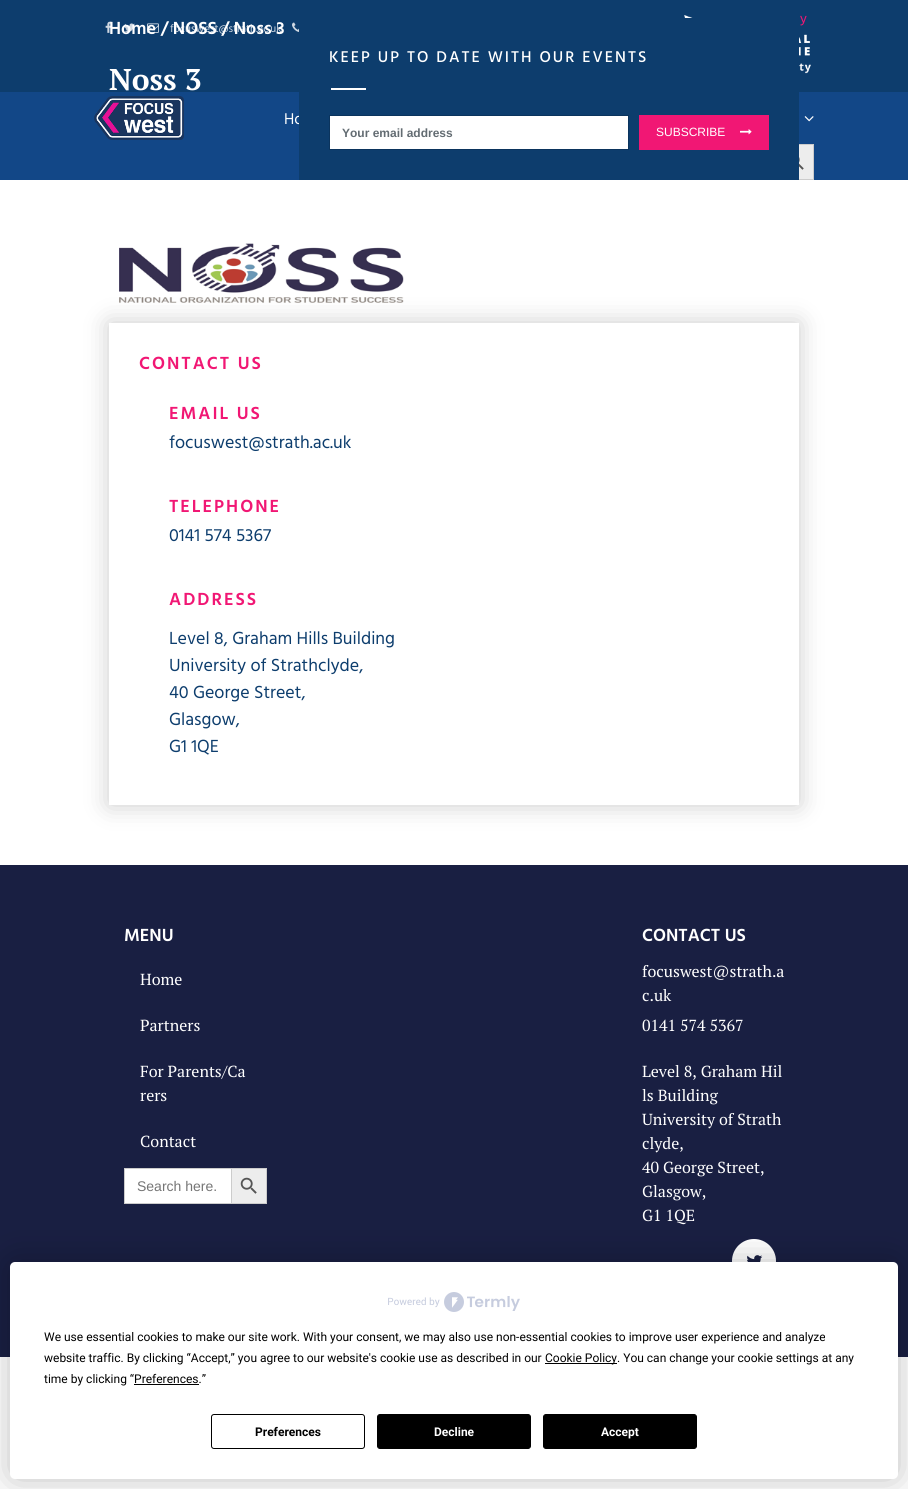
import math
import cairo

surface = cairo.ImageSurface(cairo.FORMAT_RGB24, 908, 1489)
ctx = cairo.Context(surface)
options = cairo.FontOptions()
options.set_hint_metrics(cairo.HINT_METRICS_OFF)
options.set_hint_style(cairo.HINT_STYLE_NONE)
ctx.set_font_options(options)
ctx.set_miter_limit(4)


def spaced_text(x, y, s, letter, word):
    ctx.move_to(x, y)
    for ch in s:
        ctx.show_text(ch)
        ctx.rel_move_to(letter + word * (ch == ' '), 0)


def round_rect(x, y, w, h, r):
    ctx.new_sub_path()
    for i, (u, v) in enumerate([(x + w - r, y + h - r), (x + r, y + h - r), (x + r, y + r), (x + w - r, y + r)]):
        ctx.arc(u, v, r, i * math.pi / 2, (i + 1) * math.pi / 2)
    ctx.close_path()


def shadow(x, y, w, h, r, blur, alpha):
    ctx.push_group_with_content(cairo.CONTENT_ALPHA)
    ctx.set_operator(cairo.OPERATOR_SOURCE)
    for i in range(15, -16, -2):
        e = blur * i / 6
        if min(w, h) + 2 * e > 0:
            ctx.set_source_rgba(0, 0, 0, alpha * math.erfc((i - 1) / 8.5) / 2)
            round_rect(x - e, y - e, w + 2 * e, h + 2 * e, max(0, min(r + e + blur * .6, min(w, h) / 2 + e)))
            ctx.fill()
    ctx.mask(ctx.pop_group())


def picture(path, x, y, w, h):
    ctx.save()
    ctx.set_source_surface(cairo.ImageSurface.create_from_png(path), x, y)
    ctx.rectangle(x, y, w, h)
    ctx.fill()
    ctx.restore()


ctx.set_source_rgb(1, 1, 1)
ctx.paint()
ctx.set_source_rgb(0.071, 0.278, 0.529)
ctx.rectangle(0, 92, 908, 88)
ctx.fill()
ctx.set_source_rgb(0.051, 0.239, 0.427)
ctx.rectangle(0, 0, 908, 92)
ctx.fill()
ctx.select_font_face("Hind Vadodara")
ctx.set_font_size(14)
ctx.set_source_rgb(0.945, 0.09, 0.455)
ctx.move_to(800, 23)
ctx.show_text("y")
picture("img1.png", 684, 15, 127, 59)
picture("img2.png", 105, 21, 7, 12)
picture("img3.png", 124, 23, 11, 9)
picture("img4.png", 147, 23, 12, 10)
ctx.set_font_size(11)
ctx.set_source_rgb(0.812, 0.847, 0.886)
ctx.move_to(170, 32)
ctx.show_text("focuswest@strath.ac.uk")
picture("img5.png", 292, 22, 7, 10)
picture("img6.png", 94, 96, 90, 44)
ctx.set_font_size(16)
ctx.set_source_rgb(1, 1, 1)
ctx.move_to(284, 124)
ctx.show_text("Ho")
picture("img7.png", 804, 116, 10, 6)
ctx.set_source_rgb(0.929, 0.929, 0.929)
ctx.rectangle(799, 145, 14, 34)
ctx.fill()
ctx.rectangle(778.5, 144.5, 35, 35)
ctx.set_source_rgb(0.8, 0.8, 0.8)
ctx.set_line_width(1)
ctx.stroke()
picture("img8.png", 799, 157, 5, 13)
ctx.select_font_face("Hind Vadodara SemiBold")
ctx.set_font_size(18)
ctx.set_source_rgb(1, 1, 1)
ctx.move_to(109, 34)
ctx.show_text("Home / NOSS / Noss 3")
ctx.select_font_face("PT Serif", cairo.FONT_SLANT_NORMAL, cairo.FONT_WEIGHT_BOLD)
ctx.set_font_size(30)
ctx.move_to(109, 90)
ctx.show_text("Noss 3")
ctx.set_source_rgb(0.051, 0.239, 0.427)
ctx.rectangle(299, 18, 500, 162)
ctx.fill()
ctx.select_font_face("Hind Vadodara Medium")
ctx.set_font_size(16)
ctx.set_source_rgb(1, 1, 1)
spaced_text(329, 62, "KEEP UP TO DATE WITH OUR EVENTS", 2, 0)
ctx.rectangle(331, 88, 35, 2)
ctx.fill()
ctx.rectangle(329.5, 115.5, 299, 34)
ctx.fill_preserve()
ctx.set_source_rgb(0.043, 0.204, 0.365)
ctx.stroke()
ctx.select_font_face("Liberation Sans", cairo.FONT_SLANT_NORMAL, cairo.FONT_WEIGHT_BOLD)
ctx.set_font_size(12)
ctx.set_source_rgb(0.388, 0.424, 0.447)
ctx.move_to(342, 137)
ctx.show_text("Your email address")
ctx.set_source_rgb(0.945, 0.09, 0.455)
ctx.rectangle(639, 115, 130, 35)
ctx.fill()
ctx.select_font_face("Liberation Sans")
ctx.set_source_rgb(1, 1, 1)
ctx.move_to(656, 136)
ctx.show_text("SUBSCRIBE")
picture("img9.png", 740, 129, 12, 6)
picture("img10.png", 119, 243, 285, 60)
ctx.save()
ctx.set_fill_rule(cairo.FILL_RULE_EVEN_ODD)
ctx.new_path()
ctx.move_to(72, 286)
ctx.line_to(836, 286)
ctx.line_to(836, 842)
ctx.line_to(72, 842)
ctx.close_path()
ctx.move_to(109, 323)
ctx.line_to(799, 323)
ctx.line_to(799, 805)
ctx.line_to(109, 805)
ctx.close_path()
ctx.clip()
ctx.set_source_rgb(0.8, 0.8, 0.8)
shadow(109, 323, 690, 482, 0, 12, 1)
ctx.restore()
ctx.select_font_face("Hind Vadodara SemiBold")
ctx.set_font_size(18)
ctx.set_source_rgb(0.945, 0.09, 0.455)
spaced_text(139, 369, "CONTACT US", 2, 0)
spaced_text(169, 419, "EMAIL US", 2, 0)
ctx.select_font_face("Hind Vadodara")
ctx.set_source_rgb(0.051, 0.239, 0.427)
ctx.move_to(169, 448)
ctx.show_text("focuswest@strath.ac.uk")
ctx.select_font_face("Hind Vadodara SemiBold")
ctx.set_source_rgb(0.945, 0.09, 0.455)
spaced_text(169, 512, "TELEPHONE", 2, 0)
ctx.select_font_face("Hind Vadodara")
ctx.set_source_rgb(0.051, 0.239, 0.427)
ctx.move_to(169, 541)
ctx.show_text("0141 574 5367")
ctx.select_font_face("Hind Vadodara SemiBold")
ctx.set_source_rgb(0.945, 0.09, 0.455)
spaced_text(169, 605, "ADDRESS", 2, 0)
ctx.select_font_face("Hind Vadodara")
ctx.set_source_rgb(0.051, 0.239, 0.427)
ctx.move_to(169, 644)
ctx.show_text("Level 8, Graham Hills Building")
ctx.move_to(169, 671)
ctx.show_text("University of Strathclyde,")
ctx.move_to(169, 698)
ctx.show_text("40 George Street,")
ctx.move_to(169, 725)
ctx.show_text("Glasgow,")
ctx.move_to(169, 752)
ctx.show_text("G1 1QE")
ctx.set_source_rgb(0.098, 0.122, 0.259)
ctx.rectangle(0, 865, 908, 492)
ctx.fill()
ctx.select_font_face("Hind Vadodara SemiBold")
ctx.set_source_rgb(1, 1, 1)
ctx.move_to(124, 941)
ctx.show_text("MENU")
ctx.select_font_face("PT Serif")
ctx.set_font_size(16)
ctx.move_to(140, 985)
ctx.show_text("Home")
ctx.move_to(140, 1031)
ctx.show_text("Partners")
ctx.move_to(140, 1077)
ctx.show_text("For Parents/Ca")
ctx.move_to(140, 1101)
ctx.show_text("rers")
ctx.move_to(140, 1147)
ctx.show_text("Contact")
ctx.rectangle(125, 1169, 106, 34)
ctx.fill()
ctx.set_source_rgb(0.8, 0.8, 0.8)
ctx.rectangle(124, 1168, 107, 1)
ctx.fill()
ctx.rectangle(124, 1203, 107, 1)
ctx.fill()
ctx.rectangle(124, 1168, 1, 36)
ctx.fill()
ctx.select_font_face("Liberation Sans")
ctx.set_font_size(14)
ctx.set_source_rgb(0.459, 0.459, 0.459)
ctx.move_to(137, 1191)
ctx.show_text("Search here.")
ctx.set_source_rgb(0.929, 0.929, 0.929)
ctx.rectangle(231.5, 1168.5, 35, 35)
ctx.fill_preserve()
ctx.set_source_rgb(0.8, 0.8, 0.8)
ctx.stroke()
picture("img11.png", 240, 1177, 17, 17)
ctx.select_font_face("Hind Vadodara SemiBold")
ctx.set_font_size(18)
ctx.set_source_rgb(1, 1, 1)
ctx.move_to(642, 941)
ctx.show_text("CONTACT US")
ctx.select_font_face("PT Serif")
ctx.set_font_size(16)
ctx.move_to(642, 977)
ctx.show_text("focuswest@strath.a")
ctx.move_to(642, 1001)
ctx.show_text("c.uk")
ctx.move_to(642, 1031)
ctx.show_text("0141 574 5367")
ctx.move_to(642, 1077)
ctx.show_text("Level 8, Graham Hil")
ctx.move_to(642, 1101)
ctx.show_text("ls Building")
ctx.move_to(642, 1125)
ctx.show_text("University of Strath")
ctx.move_to(642, 1149)
ctx.show_text("clyde,")
ctx.move_to(642, 1173)
ctx.show_text("40 George Street,")
ctx.move_to(642, 1197)
ctx.show_text("Glasgow,")
ctx.move_to(642, 1221)
ctx.show_text("G1 1QE")
ctx.new_path()
ctx.arc(754, 1261, 22, 0, 2 * math.pi)
ctx.fill()
picture("img12.png", 747, 1255, 16, 7)
ctx.set_source_rgb(0, 0, 0)
shadow(10, 1262, 888, 217, 5, 17.5, 0.25)
ctx.set_source_rgb(1, 1, 1)
round_rect(10, 1262, 888, 217, 5)
ctx.fill()
picture("img13.png", 388, 1292, 132, 20)
ctx.select_font_face("Roboto")
ctx.set_font_size(12)
ctx.set_source_rgb(0, 0, 0)
ctx.move_to(44, 1341)
ctx.show_text("We use essential cookies to make our site work. With your consent, we may also use non-essential cookies to improve user experience and analyze")
ctx.move_to(44, 1362)
ctx.show_text("website traffic. By clicking “Accept,” you agree to our website's cookie use as described in our")
ctx.rectangle(545, 1363, 72, 1)
ctx.fill()
ctx.move_to(545, 1362)
ctx.show_text("Cookie Policy. You can change your cookie settings at any")
ctx.move_to(44, 1383)
ctx.show_text("time by clicking “Preferences.”")
ctx.rectangle(134, 1384, 65, 1)
ctx.fill()
round_rect(211.5, 1414.5, 153, 34, 2.5)
ctx.stroke()
ctx.select_font_face("Roboto", cairo.FONT_SLANT_NORMAL, cairo.FONT_WEIGHT_BOLD)
ctx.move_to(255, 1436)
ctx.show_text("Preferences")
round_rect(377.5, 1414.5, 153, 34, 2.5)
ctx.fill_preserve()
ctx.stroke()
ctx.set_source_rgb(1, 1, 1)
ctx.move_to(434, 1436)
ctx.show_text("Decline")
ctx.set_source_rgb(0, 0, 0)
round_rect(543.5, 1414.5, 153, 34, 2.5)
ctx.fill_preserve()
ctx.stroke()
ctx.set_source_rgb(1, 1, 1)
ctx.move_to(601, 1436)
ctx.show_text("Accept")
surface.write_to_png("page.png")
